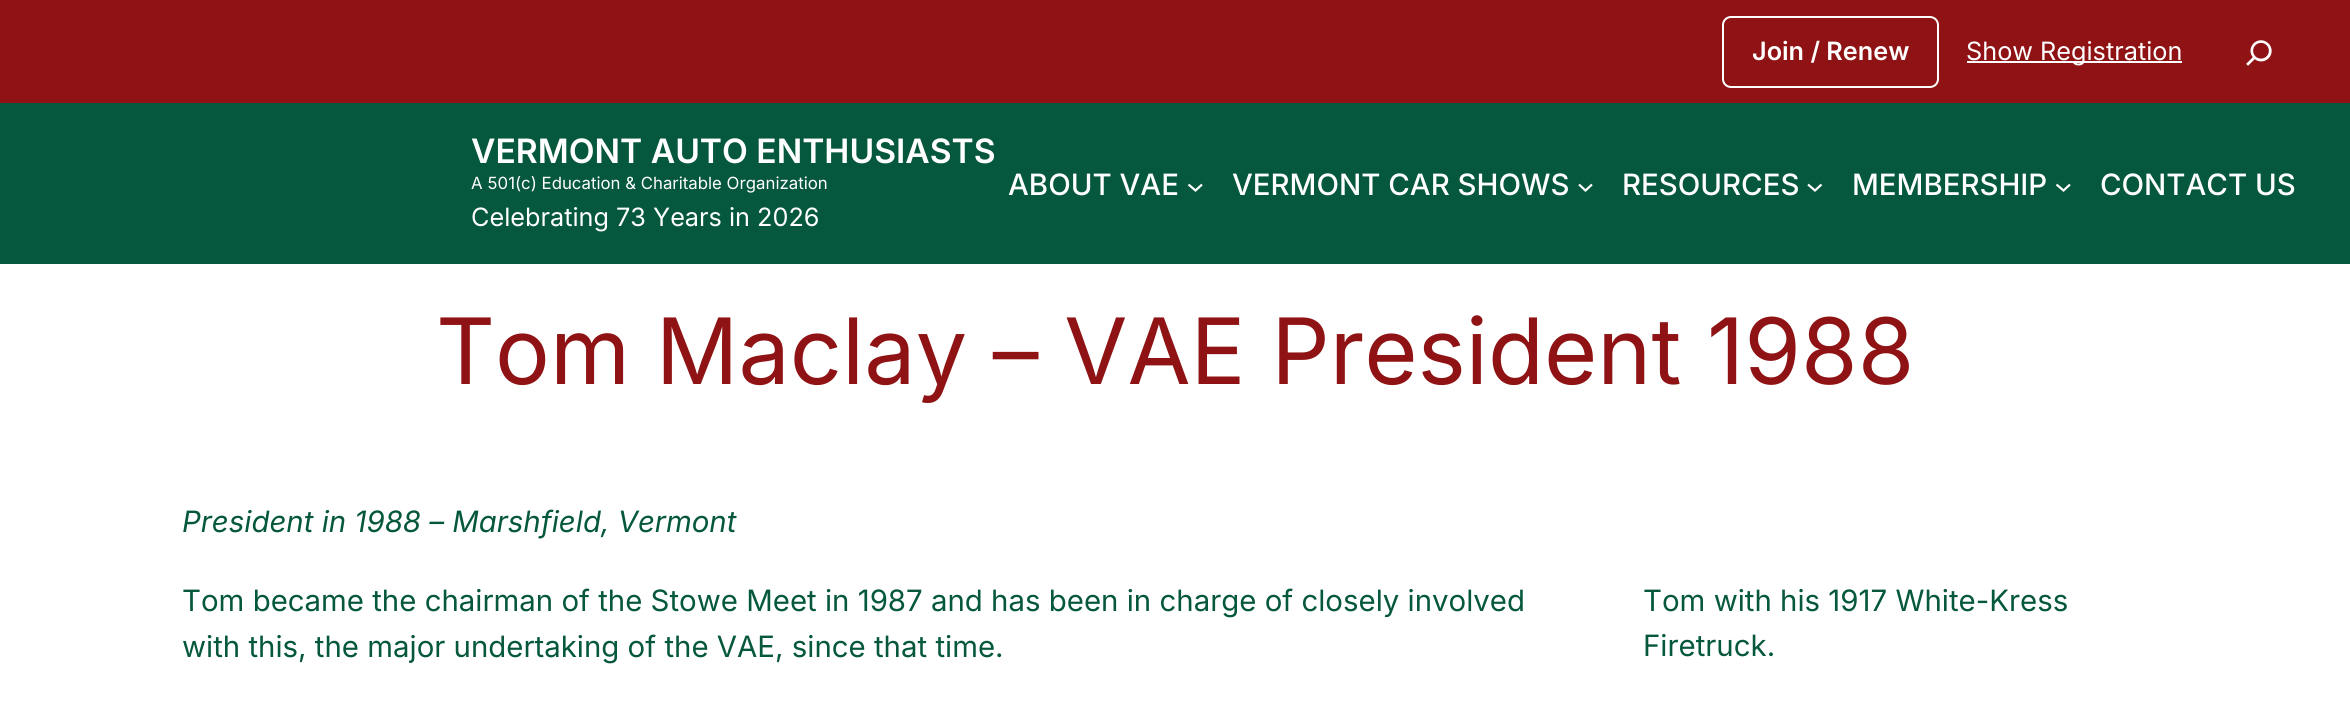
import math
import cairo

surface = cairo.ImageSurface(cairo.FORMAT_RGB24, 2350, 716)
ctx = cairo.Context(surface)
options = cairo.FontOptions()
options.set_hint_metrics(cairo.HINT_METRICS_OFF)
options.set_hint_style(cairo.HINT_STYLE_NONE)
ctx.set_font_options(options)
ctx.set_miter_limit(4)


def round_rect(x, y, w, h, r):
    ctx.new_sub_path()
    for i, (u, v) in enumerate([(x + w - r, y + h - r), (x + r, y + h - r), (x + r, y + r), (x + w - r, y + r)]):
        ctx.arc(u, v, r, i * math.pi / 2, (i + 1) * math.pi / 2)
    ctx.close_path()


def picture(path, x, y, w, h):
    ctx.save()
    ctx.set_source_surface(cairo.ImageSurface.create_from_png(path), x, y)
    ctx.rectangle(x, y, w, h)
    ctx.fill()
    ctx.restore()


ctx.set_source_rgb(1, 1, 1)
ctx.paint()
ctx.set_source_rgb(0.561, 0.075, 0.082)
ctx.rectangle(0, 0, 2350, 103)
ctx.fill()
round_rect(1723, 17, 215, 70, 8)
ctx.set_source_rgb(1, 1, 1)
ctx.stroke()
ctx.select_font_face("Inter SemiBold")
ctx.set_font_size(25.25)
ctx.move_to(1752, 60)
ctx.show_text("Join / Renew")
ctx.rectangle(1967, 61, 215, 2)
ctx.fill()
ctx.select_font_face("Inter")
ctx.move_to(1966, 60)
ctx.show_text("Show Registration")
picture("img1.png", 2246, 40, 26, 26)
ctx.set_source_rgb(0.02, 0.341, 0.239)
ctx.rectangle(0, 103, 2350, 161)
ctx.fill()
ctx.select_font_face("Inter SemiBold")
ctx.set_font_size(33.6)
ctx.set_source_rgb(1, 1, 1)
ctx.move_to(471, 163)
ctx.show_text("VERMONT AUTO ENTHUSIASTS")
ctx.select_font_face("Inter")
ctx.set_font_size(16.8)
ctx.move_to(471, 189)
ctx.show_text("A 501(c) Education & Charitable Organization")
ctx.set_font_size(25.25)
ctx.move_to(471, 226)
ctx.show_text("Celebrating 73 Years in 2026")
ctx.select_font_face("Inter Medium")
ctx.set_font_size(29.4)
ctx.move_to(1008, 195)
ctx.show_text("ABOUT VAE")
ctx.new_path()
ctx.move_to(1188.5, 184.5)
ctx.line_to(1195.5, 190.5)
ctx.line_to(1202, 184.5)
ctx.set_line_width(2.2)
ctx.stroke()
ctx.move_to(1232, 195)
ctx.show_text("VERMONT CAR SHOWS")
ctx.new_path()
ctx.move_to(1579, 184.5)
ctx.line_to(1585.5, 190.5)
ctx.line_to(1592, 184.5)
ctx.stroke()
ctx.move_to(1622, 195)
ctx.show_text("RESOURCES")
ctx.new_path()
ctx.move_to(1808, 184.5)
ctx.line_to(1815, 190.5)
ctx.line_to(1821.5, 184.5)
ctx.stroke()
ctx.move_to(1852, 195)
ctx.show_text("MEMBERSHIP")
ctx.new_path()
ctx.move_to(2056.5, 184.5)
ctx.line_to(2063.5, 190.5)
ctx.line_to(2070, 184.5)
ctx.stroke()
ctx.move_to(2100, 195)
ctx.show_text("CONTACT US")
ctx.select_font_face("Inter")
ctx.set_font_size(91.5)
ctx.set_source_rgb(0.561, 0.075, 0.082)
ctx.move_to(436, 384)
ctx.show_text("Tom Maclay – VAE President 1988")
ctx.select_font_face("Inter", cairo.FONT_SLANT_ITALIC)
ctx.set_font_size(29.4)
ctx.set_source_rgb(0.02, 0.341, 0.239)
ctx.move_to(182, 532)
ctx.show_text("President in 1988 – Marshfield, Vermont")
ctx.select_font_face("Inter")
ctx.move_to(182, 611)
ctx.show_text("Tom became the chairman of the Stowe Meet in 1987 and has been in charge of closely involved")
ctx.move_to(182, 657)
ctx.show_text("with this, the major undertaking of the VAE, since that time.")
ctx.move_to(1643, 611)
ctx.show_text("Tom with his 1917 White-Kress")
ctx.move_to(1643, 656)
ctx.show_text("Firetruck.")
surface.write_to_png("page.png")
